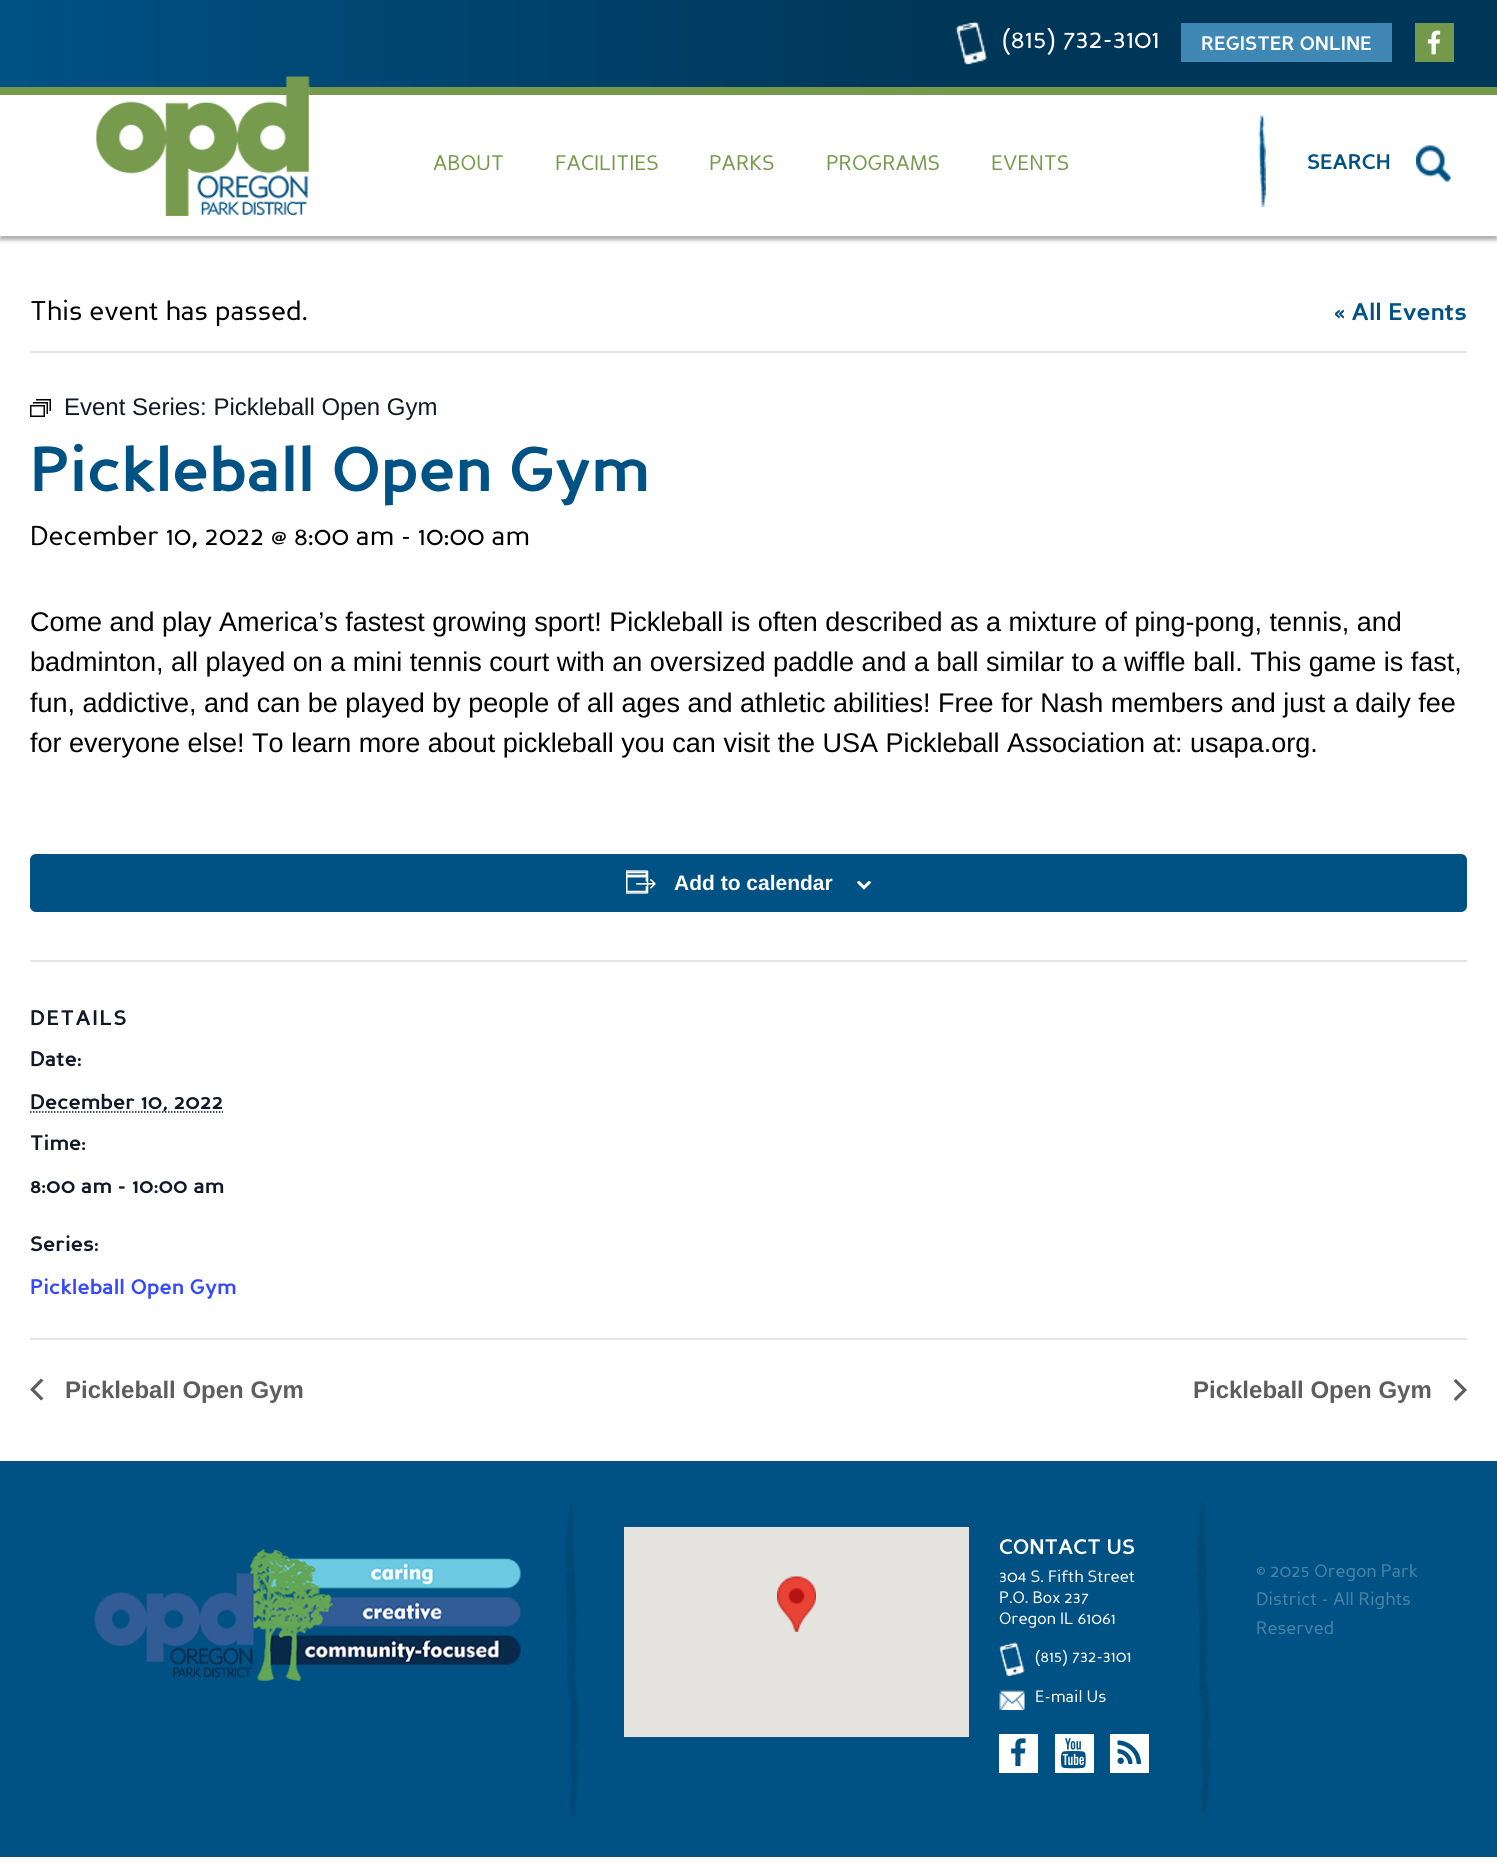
import math
import cairo

surface = cairo.ImageSurface(cairo.FORMAT_RGB24, 1497, 1872)
ctx = cairo.Context(surface)
options = cairo.FontOptions()
options.set_hint_metrics(cairo.HINT_METRICS_OFF)
options.set_hint_style(cairo.HINT_STYLE_NONE)
ctx.set_font_options(options)
ctx.set_miter_limit(4)


def spaced_text(x, y, s, letter, word):
    ctx.move_to(x, y)
    for ch in s:
        ctx.show_text(ch)
        ctx.rel_move_to(letter + word * (ch == ' '), 0)


def round_rect(x, y, w, h, r):
    ctx.new_sub_path()
    for i, (u, v) in enumerate([(x + w - r, y + h - r), (x + r, y + h - r), (x + r, y + r), (x + w - r, y + r)]):
        ctx.arc(u, v, r, i * math.pi / 2, (i + 1) * math.pi / 2)
    ctx.close_path()


def shadow(x, y, w, h, r, blur, alpha):
    ctx.push_group_with_content(cairo.CONTENT_ALPHA)
    ctx.set_operator(cairo.OPERATOR_SOURCE)
    for i in range(15, -16, -2):
        e = blur * i / 6
        if min(w, h) + 2 * e > 0:
            ctx.set_source_rgba(0, 0, 0, alpha * math.erfc((i - 1) / 8.5) / 2)
            round_rect(x - e, y - e, w + 2 * e, h + 2 * e, max(0, min(r + e + blur * .6, min(w, h) / 2 + e)))
            ctx.fill()
    ctx.mask(ctx.pop_group())


def picture(path, x, y, w, h):
    ctx.save()
    ctx.set_source_surface(cairo.ImageSurface.create_from_png(path), x, y)
    ctx.rectangle(x, y, w, h)
    ctx.fill()
    ctx.restore()


ctx.set_source_rgb(1, 1, 1)
ctx.paint()
ctx.set_source_rgb(0.459, 0.604, 0.294)
ctx.rectangle(0, 87, 1497, 8)
ctx.fill()
gradient = cairo.LinearGradient(0, 44, 1497, 43)
gradient.add_color_stop_rgba(0, 0, 0.318, 0.518, 1)
gradient.add_color_stop_rgba(0.01, 0, 0.318, 0.518, 1)
gradient.add_color_stop_rgba(0.63, 0, 0.212, 0.345, 1)
gradient.add_color_stop_rgba(0.68, 0, 0.212, 0.345, 1)
ctx.set_source(gradient)
ctx.rectangle(0, 0, 1497, 87)
ctx.fill()
picture("img1.png", 955, 22, 32, 43)
ctx.select_font_face("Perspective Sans")
ctx.set_font_size(27)
ctx.set_source_rgb(1, 1, 1)
ctx.move_to(1002, 48)
ctx.show_text("(815) 732-3101")
ctx.set_source_rgb(0.247, 0.533, 0.714)
ctx.rectangle(1181, 23, 211, 39)
ctx.fill()
ctx.select_font_face("Perspective Sans", cairo.FONT_SLANT_NORMAL, cairo.FONT_WEIGHT_BOLD)
ctx.set_font_size(19.5)
ctx.set_source_rgb(1, 1, 1)
ctx.move_to(1201, 50)
ctx.show_text("REGISTER ONLINE")
ctx.set_source_rgb(0.459, 0.6, 0.294)
ctx.rectangle(1415, 23, 39, 39)
ctx.fill()
picture("img2.png", 1427, 30, 14, 25)
ctx.save()
ctx.set_fill_rule(cairo.FILL_RULE_EVEN_ODD)
ctx.new_path()
ctx.move_to(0, 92)
ctx.line_to(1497, 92)
ctx.line_to(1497, 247)
ctx.line_to(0, 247)
ctx.close_path()
ctx.move_to(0, 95)
ctx.line_to(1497, 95)
ctx.line_to(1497, 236)
ctx.line_to(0, 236)
ctx.close_path()
ctx.clip()
ctx.set_source_rgb(0, 0, 0)
shadow(0, 99, 1497, 141, 0, 2, 0.32)
ctx.restore()
ctx.set_source_rgba(1, 1, 1, 0.85)
ctx.rectangle(0, 235, 1497, 1)
ctx.fill()
picture("img3.png", 96, 76, 214, 140)
ctx.select_font_face("Perspective Sans")
ctx.set_font_size(21)
ctx.set_source_rgb(0.459, 0.6, 0.294)
ctx.move_to(433, 170)
ctx.show_text("ABOUT")
ctx.move_to(555, 170)
ctx.show_text("FACILITIES")
ctx.move_to(709, 170)
ctx.show_text("PARKS")
ctx.move_to(826, 170)
ctx.show_text("PROGRAMS")
ctx.move_to(991, 170)
ctx.show_text("EVENTS")
picture("img4.png", 1258, 115, 8, 92)
ctx.select_font_face("Perspective Sans", cairo.FONT_SLANT_NORMAL, cairo.FONT_WEIGHT_BOLD)
ctx.set_source_rgb(0, 0.318, 0.518)
ctx.move_to(1307, 169)
ctx.show_text("SEARCH")
picture("img5.png", 1416, 145, 35, 37)
ctx.set_source_rgb(0.894, 0.894, 0.894)
ctx.rectangle(30, 351, 1437, 2)
ctx.fill()
ctx.select_font_face("Perspective Sans")
ctx.set_font_size(27)
ctx.set_source_rgb(0, 0, 0)
ctx.move_to(30, 320)
ctx.show_text("This event has passed.")
ctx.select_font_face("Perspective Sans", cairo.FONT_SLANT_NORMAL, cairo.FONT_WEIGHT_BOLD)
ctx.set_font_size(24)
ctx.set_source_rgb(0, 0.318, 0.518)
ctx.move_to(1334, 320)
ctx.show_text("« All Events")
picture("img6.png", 30, 399, 21, 18)
ctx.select_font_face("Liberation Sans")
ctx.set_source_rgb(0.078, 0.094, 0.153)
ctx.move_to(64, 415)
ctx.show_text("Event Series: Pickleball Open Gym")
ctx.select_font_face("Perspective Sans", cairo.FONT_SLANT_NORMAL, cairo.FONT_WEIGHT_BOLD)
ctx.set_font_size(63)
ctx.set_source_rgb(0, 0.318, 0.518)
ctx.move_to(30, 491)
ctx.show_text("Pickleball Open Gym")
ctx.select_font_face("Perspective Sans")
ctx.set_font_size(27)
ctx.set_source_rgb(0, 0, 0)
ctx.move_to(30, 545)
ctx.show_text("December 10, 2022 @ 8:00 am - 10:00 am")
ctx.select_font_face("Liberation Sans")
ctx.move_to(30, 631)
ctx.show_text("Come and play America’s fastest growing sport! Pickleball is often described as a mixture of ping-pong, tennis, and")
ctx.move_to(30, 671)
ctx.show_text("badminton, all played on a mini tennis court with an oversized paddle and a ball similar to a wiffle ball. This game is fast,")
ctx.move_to(30, 712)
ctx.show_text("fun, addictive, and can be played by people of all ages and athletic abilities! Free for Nash members and just a daily fee")
ctx.move_to(30, 752)
ctx.show_text("for everyone else! To learn more about pickleball you can visit the USA Pickleball Association at: usapa.org.")
ctx.set_source_rgb(0, 0.318, 0.518)
round_rect(30, 854, 1437, 58, 6)
ctx.fill()
picture("img7.png", 626, 870, 30, 24)
ctx.select_font_face("Liberation Sans", cairo.FONT_SLANT_NORMAL, cairo.FONT_WEIGHT_BOLD)
ctx.set_font_size(21)
ctx.set_source_rgb(1, 1, 1)
ctx.move_to(674, 890)
ctx.show_text("Add to calendar")
picture("img8.png", 857, 881, 15, 9)
ctx.set_source_rgb(0.894, 0.894, 0.894)
ctx.rectangle(30, 960, 1437, 2)
ctx.fill()
ctx.select_font_face("Perspective Sans", cairo.FONT_SLANT_NORMAL, cairo.FONT_WEIGHT_BOLD)
ctx.set_source_rgb(0.078, 0.094, 0.153)
spaced_text(30, 1025, "DETAILS", 1.5, 0)
ctx.move_to(30, 1066)
ctx.show_text("Date:")
ctx.new_path()
ctx.move_to(30, 1112)
ctx.line_to(223, 1112)
ctx.set_line_width(1.5)
ctx.set_dash([1.5, 1.5])
ctx.stroke()
ctx.move_to(30, 1109)
ctx.show_text("December 10, 2022")
ctx.move_to(30, 1150)
ctx.show_text("Time:")
ctx.move_to(30, 1193)
ctx.show_text("8:00 am - 10:00 am")
ctx.move_to(30, 1251)
ctx.show_text("Series:")
ctx.set_source_rgb(0.2, 0.29, 1)
ctx.move_to(30, 1294)
ctx.show_text("Pickleball Open Gym")
ctx.set_source_rgb(0.894, 0.894, 0.894)
ctx.rectangle(30, 1338, 1437, 2)
ctx.fill()
ctx.set_source_rgb(0.365, 0.365, 0.365)
ctx.new_path()
ctx.move_to(43.5, 1398.5)
ctx.line_to(41, 1400.5)
ctx.line_to(30, 1389.5)
ctx.line_to(41, 1378.5)
ctx.line_to(43.5, 1380.5)
ctx.line_to(34.5, 1389.5)
ctx.close_path()
ctx.fill()
ctx.select_font_face("Liberation Sans", cairo.FONT_SLANT_NORMAL, cairo.FONT_WEIGHT_BOLD)
ctx.set_font_size(24)
ctx.move_to(65, 1398)
ctx.show_text("Pickleball Open Gym")
ctx.move_to(1193, 1398)
ctx.show_text("Pickleball Open Gym")
ctx.save()
ctx.rectangle(1454, 1379, 13, 22)
ctx.clip()
ctx.new_path()
ctx.move_to(1453.5, 1381)
ctx.line_to(1456, 1379)
ctx.line_to(1467, 1390)
ctx.line_to(1456, 1401)
ctx.line_to(1453.5, 1399)
ctx.line_to(1462.5, 1390)
ctx.close_path()
ctx.fill()
ctx.restore()
ctx.set_source_rgb(0, 0.318, 0.518)
ctx.rectangle(0, 1461, 1497, 396)
ctx.fill()
picture("img9.png", 94, 1549, 427, 132)
picture("img10.png", 565, 1503, 14, 314)
ctx.set_source_rgb(0.898, 0.89, 0.875)
ctx.rectangle(624, 1527, 345, 210)
ctx.fill()
picture("img11.png", 777, 1576, 39, 56)
ctx.select_font_face("Perspective Sans", cairo.FONT_SLANT_NORMAL, cairo.FONT_WEIGHT_BOLD)
ctx.set_font_size(21)
ctx.set_source_rgb(1, 1, 1)
ctx.move_to(999, 1554)
ctx.show_text("CONTACT US")
ctx.select_font_face("Perspective Sans")
ctx.set_font_size(16.5)
ctx.move_to(999, 1582)
ctx.show_text("304 S. Fifth Street")
ctx.move_to(999, 1603)
ctx.show_text("P.O. Box 237")
ctx.move_to(999, 1624)
ctx.show_text("Oregon IL 61061")
picture("img12.png", 999, 1642, 26, 35)
ctx.move_to(1035, 1662)
ctx.show_text("(815) 732-3101")
picture("img13.png", 999, 1690, 26, 20)
ctx.move_to(1035, 1702)
ctx.show_text("E-mail Us")
ctx.rectangle(999, 1734, 39, 39)
ctx.fill()
picture("img14.png", 1011, 1738, 15, 29)
ctx.rectangle(1055, 1734, 39, 39)
ctx.fill()
picture("img15.png", 1060, 1738, 26, 31)
ctx.rectangle(1110, 1734, 39, 39)
ctx.fill()
picture("img16.png", 1117, 1740, 25, 24)
picture("img17.png", 1197, 1502, 14, 315)
ctx.set_font_size(18)
ctx.set_source_rgb(0.29, 0.514, 0.659)
ctx.move_to(1256, 1577)
ctx.show_text("© 2025 Oregon Park")
ctx.move_to(1256, 1605)
ctx.show_text("District - All Rights")
ctx.move_to(1256, 1634)
ctx.show_text("Reserved")
surface.write_to_png("page.png")
